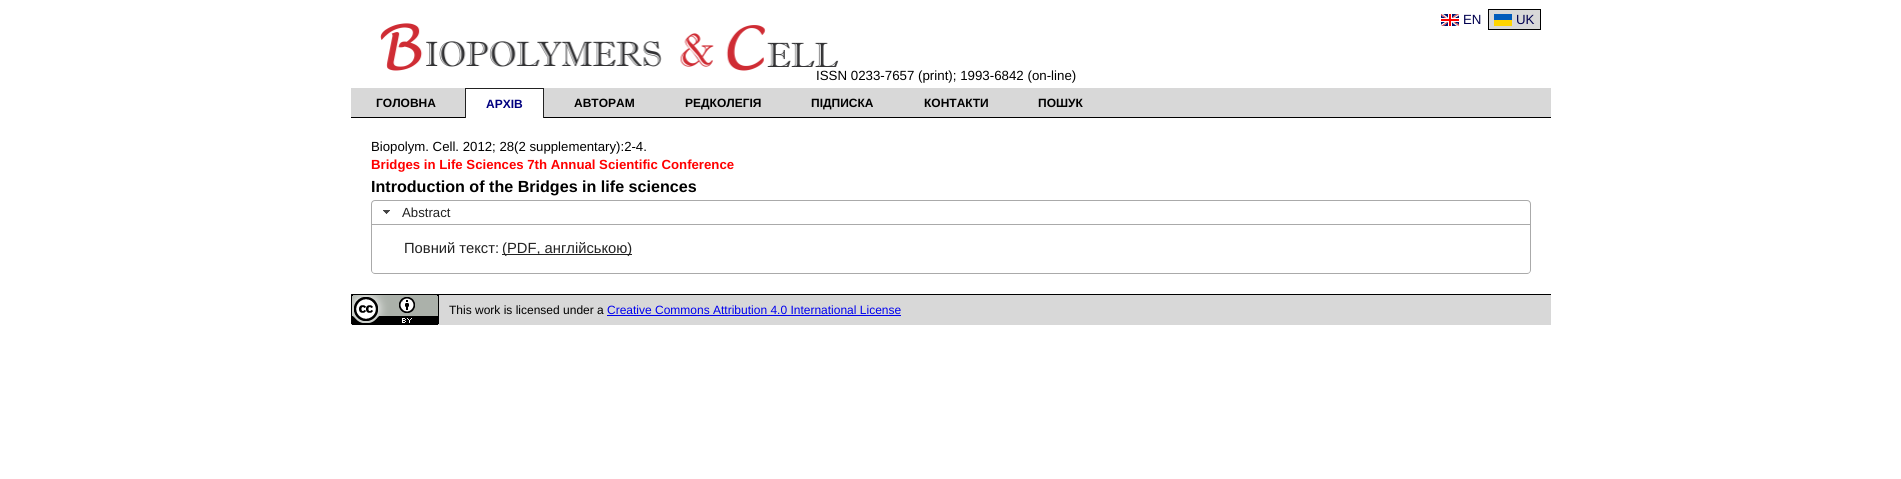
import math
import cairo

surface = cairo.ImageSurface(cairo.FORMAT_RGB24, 1901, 479)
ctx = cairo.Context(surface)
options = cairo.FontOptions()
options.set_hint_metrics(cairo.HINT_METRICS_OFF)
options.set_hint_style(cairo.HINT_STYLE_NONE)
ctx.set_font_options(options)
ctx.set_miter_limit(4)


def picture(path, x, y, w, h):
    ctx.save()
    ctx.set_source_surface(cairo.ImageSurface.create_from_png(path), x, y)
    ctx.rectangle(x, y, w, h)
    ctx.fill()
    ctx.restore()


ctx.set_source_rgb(1, 1, 1)
ctx.paint()
picture("img1.png", 380, 23, 459, 48)
picture("img2.png", 1441, 14, 18, 12)
ctx.select_font_face("Liberation Sans")
ctx.set_font_size(13.3)
ctx.set_source_rgb(0, 0, 0.31)
ctx.move_to(1463, 24)
ctx.show_text("EN")
ctx.set_source_rgb(0.847, 0.847, 0.847)
ctx.rectangle(1488.5, 9.5, 52, 20)
ctx.fill_preserve()
ctx.set_source_rgb(0, 0, 0)
ctx.set_line_width(1)
ctx.stroke()
picture("img3.png", 1494, 14, 18, 12)
ctx.set_source_rgb(0, 0, 0.31)
ctx.move_to(1516, 24)
ctx.show_text("UK")
ctx.set_source_rgb(0, 0, 0)
ctx.move_to(816, 80)
ctx.show_text("ISSN 0233-7657 (print); 1993-6842 (on-line)")
ctx.set_source_rgb(0.847, 0.847, 0.847)
ctx.rectangle(351, 88, 1200, 29)
ctx.fill()
ctx.set_source_rgb(0, 0, 0)
ctx.rectangle(351, 117, 1200, 1)
ctx.fill()
ctx.select_font_face("Liberation Sans", cairo.FONT_SLANT_NORMAL, cairo.FONT_WEIGHT_BOLD)
ctx.set_font_size(12)
ctx.move_to(376, 107)
ctx.show_text("ГОЛОВНА")
ctx.set_source_rgb(1, 1, 1)
ctx.rectangle(466, 89, 77, 29)
ctx.fill()
ctx.set_source_rgb(0.133, 0.133, 0.133)
ctx.rectangle(465, 88, 79, 1)
ctx.fill()
ctx.rectangle(543, 88, 1, 30)
ctx.fill()
ctx.rectangle(465, 88, 1, 30)
ctx.fill()
ctx.set_source_rgb(0, 0, 0.498)
ctx.move_to(486, 108)
ctx.show_text("АРХІВ")
ctx.set_source_rgb(0, 0, 0)
ctx.move_to(574, 107)
ctx.show_text("АВТОРАМ")
ctx.move_to(685, 107)
ctx.show_text("РЕДКОЛЕГІЯ")
ctx.move_to(811, 107)
ctx.show_text("ПІДПИСКА")
ctx.move_to(924, 107)
ctx.show_text("КОНТАКТИ")
ctx.move_to(1038, 107)
ctx.show_text("ПОШУК")
ctx.select_font_face("Liberation Sans")
ctx.set_font_size(13.2)
ctx.move_to(371, 151)
ctx.show_text("Biopolym. Cell. 2012; 28(2 supplementary):2-4.")
ctx.select_font_face("Liberation Sans", cairo.FONT_SLANT_NORMAL, cairo.FONT_WEIGHT_BOLD)
ctx.set_source_rgb(1, 0, 0)
ctx.move_to(371, 169)
ctx.show_text("Bridges in Life Sciences 7th Annual Scientific Conference")
ctx.set_font_size(16.1)
ctx.set_source_rgb(0, 0, 0)
ctx.move_to(371, 192)
ctx.show_text("Introduction of the Bridges in life sciences")
ctx.new_path()
ctx.move_to(375, 200.5)
ctx.line_to(1527, 200.5)
ctx.curve_to(1529, 200.5, 1530.5, 202, 1530.5, 204)
ctx.line_to(1530.5, 224.5)
ctx.line_to(371.5, 224.5)
ctx.line_to(371.5, 204)
ctx.curve_to(371.5, 202, 373, 200.5, 375, 200.5)
ctx.close_path()
ctx.set_source_rgb(0.667, 0.667, 0.667)
ctx.stroke()
picture("img4.png", 383, 210, 7, 4)
ctx.select_font_face("Liberation Sans")
ctx.set_font_size(13.2)
ctx.set_source_rgb(0.133, 0.133, 0.133)
ctx.move_to(402, 217)
ctx.show_text("Abstract")
ctx.set_source_rgb(0.667, 0.667, 0.667)
ctx.set_fill_rule(cairo.FILL_RULE_EVEN_ODD)
ctx.new_path()
ctx.move_to(371, 225)
ctx.line_to(1531, 225)
ctx.line_to(1531, 270)
ctx.curve_to(1531, 272, 1529, 274, 1527, 274)
ctx.line_to(375, 274)
ctx.curve_to(373, 274, 371, 272, 371, 270)
ctx.close_path()
ctx.move_to(372, 225)
ctx.line_to(1530, 225)
ctx.line_to(1530, 270)
ctx.curve_to(1530, 272, 1529, 273, 1527, 273)
ctx.line_to(375, 273)
ctx.curve_to(373, 273, 372, 272, 372, 270)
ctx.close_path()
ctx.fill()
ctx.set_font_size(14.75)
ctx.set_source_rgb(0.133, 0.133, 0.133)
ctx.move_to(404, 253)
ctx.show_text("Повний текст:")
ctx.rectangle(502, 254, 130, 1)
ctx.fill()
ctx.move_to(502, 253)
ctx.show_text("(PDF, англійською)")
ctx.set_source_rgb(0.847, 0.847, 0.847)
ctx.rectangle(351, 295, 1200, 30)
ctx.fill()
ctx.set_source_rgb(0, 0, 0)
ctx.rectangle(351, 294, 1200, 1)
ctx.fill()
picture("img5.png", 351, 294, 88, 31)
ctx.set_font_size(12)
ctx.move_to(449, 314)
ctx.show_text("This work is licensed under a")
ctx.set_source_rgb(0, 0, 0.933)
ctx.move_to(607, 314)
ctx.show_text("Creative Commons Attribution 4.0 International License")
ctx.rectangle(607, 315, 294, 1)
ctx.fill()
surface.write_to_png("page.png")
